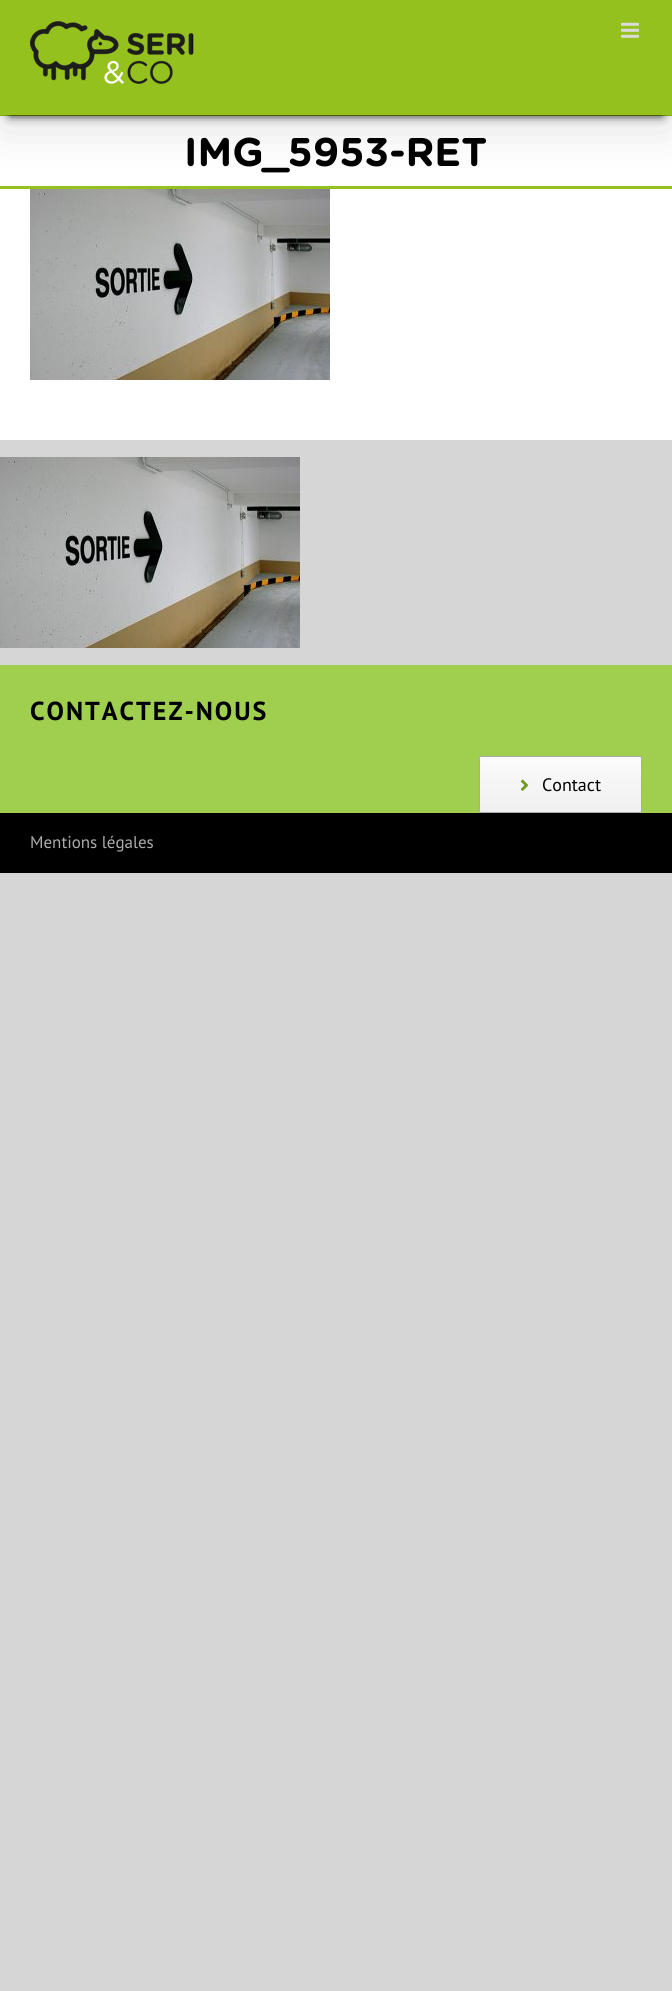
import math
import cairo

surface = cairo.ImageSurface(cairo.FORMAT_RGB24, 672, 1991)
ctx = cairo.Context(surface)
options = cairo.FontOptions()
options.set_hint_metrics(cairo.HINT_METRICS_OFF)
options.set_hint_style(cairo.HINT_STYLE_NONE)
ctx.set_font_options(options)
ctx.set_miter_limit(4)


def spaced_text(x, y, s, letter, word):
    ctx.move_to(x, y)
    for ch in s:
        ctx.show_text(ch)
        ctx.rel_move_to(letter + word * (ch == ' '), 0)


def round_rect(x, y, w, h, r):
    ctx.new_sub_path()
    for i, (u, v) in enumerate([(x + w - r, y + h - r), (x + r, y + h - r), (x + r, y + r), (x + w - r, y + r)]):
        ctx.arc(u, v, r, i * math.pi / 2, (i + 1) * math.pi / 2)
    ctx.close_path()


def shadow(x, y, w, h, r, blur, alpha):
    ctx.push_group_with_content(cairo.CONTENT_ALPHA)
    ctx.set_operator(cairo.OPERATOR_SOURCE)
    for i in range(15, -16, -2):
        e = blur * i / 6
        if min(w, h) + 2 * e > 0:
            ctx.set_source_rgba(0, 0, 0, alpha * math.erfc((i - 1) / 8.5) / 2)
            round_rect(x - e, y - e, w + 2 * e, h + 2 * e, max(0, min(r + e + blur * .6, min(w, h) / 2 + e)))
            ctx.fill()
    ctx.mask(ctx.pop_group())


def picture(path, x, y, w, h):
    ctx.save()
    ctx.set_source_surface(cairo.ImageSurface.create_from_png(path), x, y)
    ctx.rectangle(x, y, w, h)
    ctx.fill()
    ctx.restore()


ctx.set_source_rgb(0.843, 0.839, 0.839)
ctx.paint()
ctx.set_source_rgb(1, 1, 1)
ctx.rectangle(0, 116, 672, 70)
ctx.fill()
ctx.set_source_rgb(0.584, 0.757, 0.122)
ctx.rectangle(0, 115, 672, 1)
ctx.fill()
ctx.set_source_rgb(0, 0, 0)
shadow(10, 20, 652, 95, 0, 5, 1)
ctx.set_source_rgb(0.584, 0.757, 0.122)
ctx.rectangle(0, 186, 672, 3)
ctx.fill()
ctx.set_source_rgb(1, 1, 1)
ctx.rectangle(0, 189, 672, 251)
ctx.fill()
picture("img3.png", 30, 189, 300, 191)
ctx.set_source_rgb(0, 0, 0)
shadow(2, 12, 668, 111, 0, 25, 0.14)
ctx.set_source_rgb(0.584, 0.757, 0.122)
ctx.rectangle(0, 0, 672, 115)
ctx.fill()
picture("img1.png", 30, 20, 164, 65)
picture("img2.png", 621, 22, 18, 16)
ctx.select_font_face("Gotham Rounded", cairo.FONT_SLANT_NORMAL, cairo.FONT_WEIGHT_BOLD)
ctx.set_font_size(40)
ctx.set_source_rgb(0, 0, 0)
ctx.move_to(184, 166)
ctx.show_text("IMG_5953-RET")
picture("img3.png", 0, 457, 300, 191)
ctx.set_source_rgb(0.627, 0.808, 0.306)
ctx.rectangle(0, 665, 672, 148)
ctx.fill()
ctx.select_font_face("PT Sans", cairo.FONT_SLANT_NORMAL, cairo.FONT_WEIGHT_BOLD)
ctx.set_font_size(26)
ctx.set_source_rgb(0, 0, 0)
spaced_text(30, 720, "CONTACTEZ-NOUS", 2, 0)
ctx.save()
round_rect(479, 756, 163, 57, 2)
ctx.clip()
gradient = cairo.LinearGradient(561, 812, 561, 757)
gradient.add_color_stop_rgba(0, 0.941, 0.941, 0.941, 1)
gradient.add_color_stop_rgba(1, 0.984, 0.984, 0.984, 1)
ctx.set_source(gradient)
ctx.rectangle(479, 757, 163, 55)
ctx.fill()
ctx.restore()
round_rect(479.5, 756.5, 162, 56, 1.5)
ctx.set_source_rgb(0.671, 0.671, 0.671)
ctx.set_line_width(1)
ctx.stroke()
picture("img4.png", 520, 779, 9, 12)
ctx.select_font_face("PT Sans")
ctx.set_font_size(18)
ctx.set_source_rgb(0, 0, 0)
ctx.move_to(542, 791)
ctx.show_text("Contact")
ctx.rectangle(0, 813, 672, 60)
ctx.fill()
ctx.set_font_size(17)
ctx.set_source_rgb(0.678, 0.678, 0.678)
ctx.move_to(30, 848)
ctx.show_text("Mentions légales")
surface.write_to_png("page.png")
